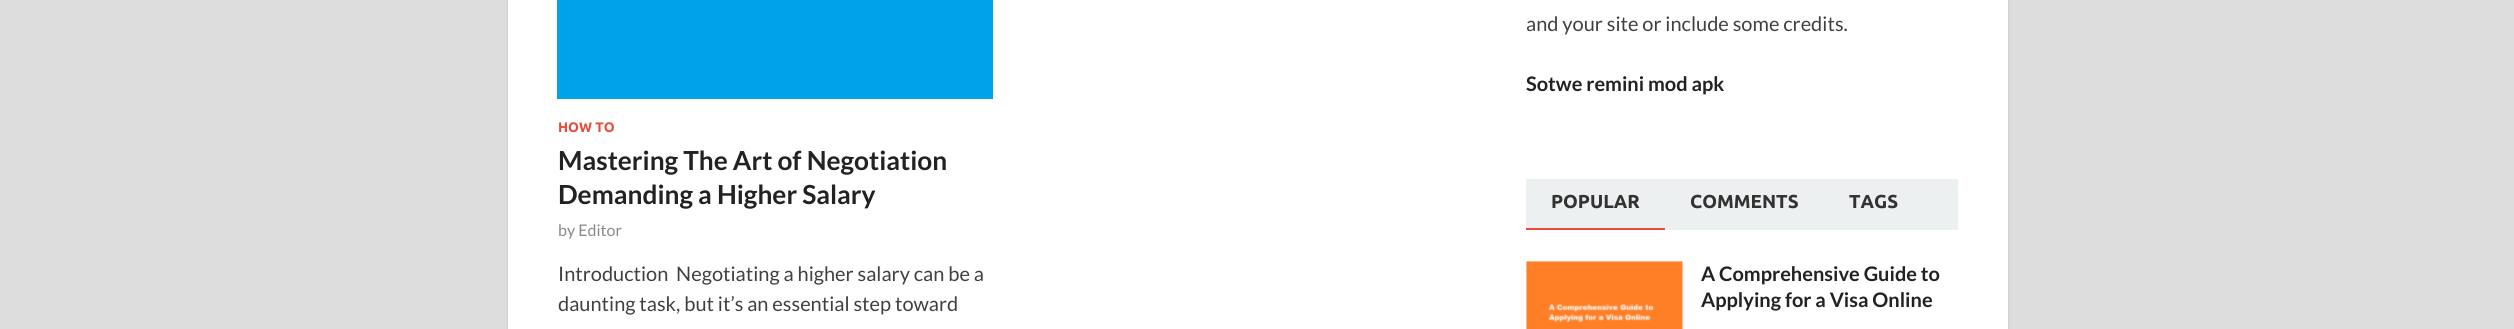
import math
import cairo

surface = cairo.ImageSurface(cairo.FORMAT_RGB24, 2514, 329)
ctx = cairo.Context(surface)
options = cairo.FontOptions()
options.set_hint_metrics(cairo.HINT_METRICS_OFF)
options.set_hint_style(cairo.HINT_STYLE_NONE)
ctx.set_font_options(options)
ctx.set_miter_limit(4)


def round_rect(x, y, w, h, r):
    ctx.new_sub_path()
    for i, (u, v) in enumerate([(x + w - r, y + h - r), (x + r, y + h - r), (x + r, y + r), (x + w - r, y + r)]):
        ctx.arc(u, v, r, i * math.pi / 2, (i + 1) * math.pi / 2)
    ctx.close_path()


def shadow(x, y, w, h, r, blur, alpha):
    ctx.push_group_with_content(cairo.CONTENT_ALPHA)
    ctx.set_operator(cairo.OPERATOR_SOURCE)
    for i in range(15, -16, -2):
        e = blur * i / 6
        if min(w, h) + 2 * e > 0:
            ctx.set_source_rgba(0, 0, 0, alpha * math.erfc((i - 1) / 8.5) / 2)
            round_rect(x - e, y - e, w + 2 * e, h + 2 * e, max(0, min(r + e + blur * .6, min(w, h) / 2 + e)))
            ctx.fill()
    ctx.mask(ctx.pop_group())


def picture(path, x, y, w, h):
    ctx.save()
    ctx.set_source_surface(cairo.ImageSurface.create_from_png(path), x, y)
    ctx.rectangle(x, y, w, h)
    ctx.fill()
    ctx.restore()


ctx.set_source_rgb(0.867, 0.867, 0.867)
ctx.paint()
ctx.set_source_rgb(0.733, 0.733, 0.733)
shadow(508, -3, 1500, 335, 0, 1, 1)
ctx.set_source_rgb(1, 1, 1)
ctx.rectangle(508, 0, 1500, 329)
ctx.fill()
ctx.set_source_rgb(0, 0.635, 0.91)
ctx.rectangle(557, 0, 436, 99)
ctx.fill()
ctx.select_font_face("Ubuntu", cairo.FONT_SLANT_NORMAL, cairo.FONT_WEIGHT_BOLD)
ctx.set_font_size(13.75)
ctx.set_source_rgb(0.906, 0.298, 0.235)
ctx.move_to(558, 132)
ctx.show_text("HOW TO")
ctx.select_font_face("Lato", cairo.FONT_SLANT_NORMAL, cairo.FONT_WEIGHT_BOLD)
ctx.set_font_size(26.25)
ctx.set_source_rgb(0.133, 0.133, 0.133)
ctx.move_to(558, 170)
ctx.show_text("Mastering The Art of Negotiation")
ctx.move_to(558, 204)
ctx.show_text("Demanding a Higher Salary")
ctx.select_font_face("Lato")
ctx.set_font_size(16)
ctx.set_source_rgb(0.533, 0.533, 0.533)
ctx.move_to(558, 236)
ctx.show_text("by Editor")
ctx.set_font_size(20)
ctx.set_source_rgb(0.251, 0.251, 0.251)
ctx.move_to(558, 281)
ctx.show_text("Introduction  Negotiating a higher salary can be a")
ctx.move_to(558, 311)
ctx.show_text("daunting task, but it’s an essential step toward")
ctx.move_to(1526, 31)
ctx.show_text("and your site or include some credits.")
ctx.select_font_face("Lato", cairo.FONT_SLANT_NORMAL, cairo.FONT_WEIGHT_BOLD)
ctx.set_source_rgb(0.133, 0.133, 0.133)
ctx.move_to(1526, 91)
ctx.show_text("Sotwe remini mod apk")
ctx.set_source_rgb(0.925, 0.941, 0.945)
ctx.rectangle(1526, 179, 432, 51)
ctx.fill()
ctx.set_source_rgb(0.906, 0.298, 0.235)
ctx.rectangle(1526, 228, 139, 2)
ctx.fill()
ctx.select_font_face("Ubuntu", cairo.FONT_SLANT_NORMAL, cairo.FONT_WEIGHT_BOLD)
ctx.set_font_size(18.75)
ctx.set_source_rgb(0.2, 0.2, 0.2)
ctx.move_to(1551, 208)
ctx.show_text("POPULAR")
ctx.move_to(1690, 208)
ctx.show_text("COMMENTS")
ctx.move_to(1849, 208)
ctx.show_text("TAGS")
picture("img1.png", 1526, 261, 157, 68)
ctx.select_font_face("Lato", cairo.FONT_SLANT_NORMAL, cairo.FONT_WEIGHT_BOLD)
ctx.set_font_size(20)
ctx.set_source_rgb(0.133, 0.133, 0.133)
ctx.move_to(1701, 281)
ctx.show_text("A Comprehensive Guide to")
ctx.move_to(1701, 307)
ctx.show_text("Applying for a Visa Online")
surface.write_to_png("page.png")
